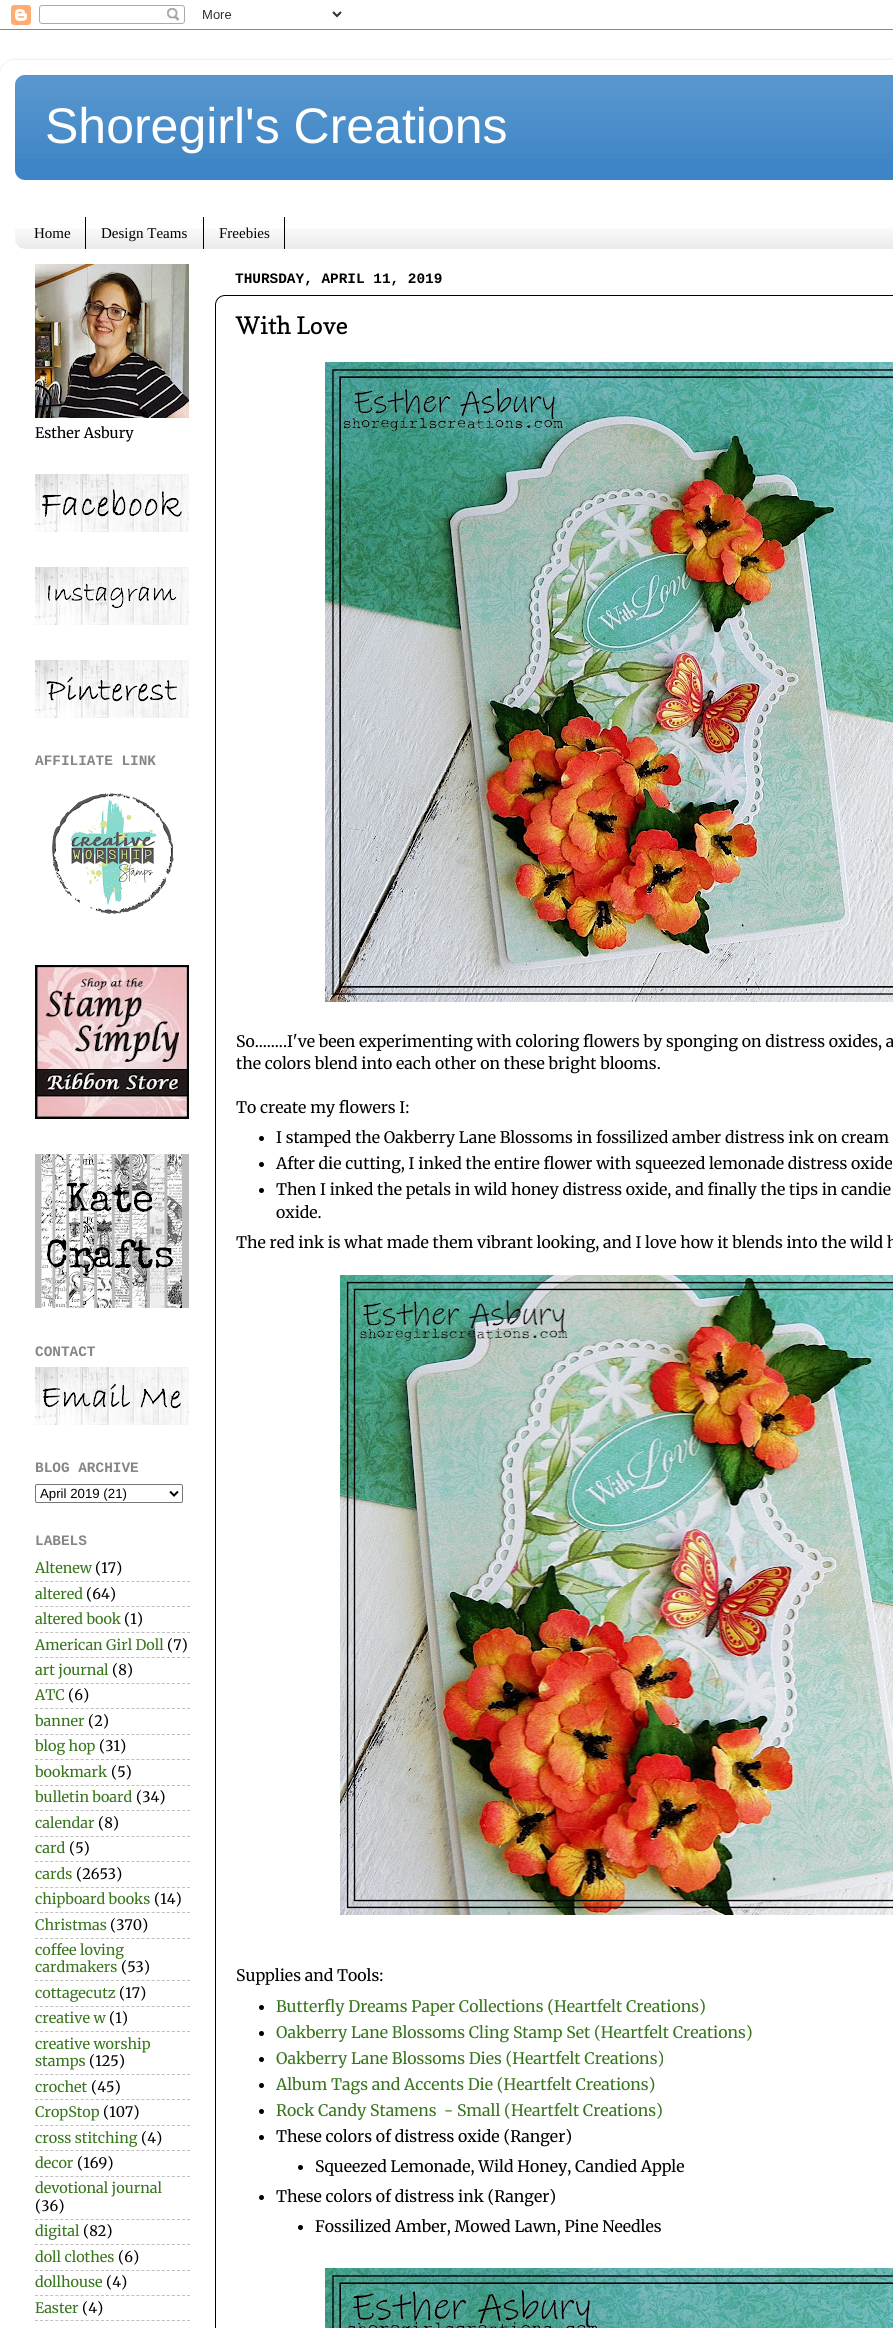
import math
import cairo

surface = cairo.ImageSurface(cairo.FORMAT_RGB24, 893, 2328)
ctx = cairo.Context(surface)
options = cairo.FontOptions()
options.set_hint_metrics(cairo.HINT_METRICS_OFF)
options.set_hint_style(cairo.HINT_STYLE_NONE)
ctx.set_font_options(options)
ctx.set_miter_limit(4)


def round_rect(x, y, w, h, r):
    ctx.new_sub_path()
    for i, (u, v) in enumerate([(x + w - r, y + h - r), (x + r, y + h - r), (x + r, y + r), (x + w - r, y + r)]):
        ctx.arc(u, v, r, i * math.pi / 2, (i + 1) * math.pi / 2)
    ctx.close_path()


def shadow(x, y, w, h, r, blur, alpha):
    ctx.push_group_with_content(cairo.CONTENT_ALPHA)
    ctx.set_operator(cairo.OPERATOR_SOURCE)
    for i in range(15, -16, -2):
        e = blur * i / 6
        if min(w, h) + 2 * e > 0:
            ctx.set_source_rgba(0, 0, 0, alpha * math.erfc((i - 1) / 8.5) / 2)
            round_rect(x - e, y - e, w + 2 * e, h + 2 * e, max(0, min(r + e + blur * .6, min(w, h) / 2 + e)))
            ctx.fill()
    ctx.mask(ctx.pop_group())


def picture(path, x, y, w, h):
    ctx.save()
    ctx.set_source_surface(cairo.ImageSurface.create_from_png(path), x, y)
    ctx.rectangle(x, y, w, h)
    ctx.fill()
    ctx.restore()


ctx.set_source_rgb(1, 1, 1)
ctx.paint()
picture("img1.png", 0, 5, 893, 25)
ctx.save()
ctx.set_fill_rule(cairo.FILL_RULE_EVEN_ODD)
ctx.new_path()
ctx.move_to(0, 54)
ctx.line_to(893, 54)
ctx.line_to(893, 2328)
ctx.line_to(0, 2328)
ctx.close_path()
ctx.move_to(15, 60)
ctx.line_to(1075, 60)
ctx.curve_to(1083.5, 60, 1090, 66.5, 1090, 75)
ctx.line_to(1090, 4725)
ctx.curve_to(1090, 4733.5, 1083.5, 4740, 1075, 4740)
ctx.line_to(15, 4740)
ctx.curve_to(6.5, 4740, 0, 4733.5, 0, 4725)
ctx.line_to(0, 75)
ctx.curve_to(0, 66.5, 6.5, 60, 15, 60)
ctx.close_path()
ctx.clip()
ctx.set_source_rgb(0, 0, 0)
shadow(0, 60, 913, 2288, 15, 1.5, 0.15)
ctx.restore()
ctx.set_source_rgb(0.239, 0.522, 0.776)
round_rect(15, 75, 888, 105, 10)
ctx.fill()
picture("img2.png", 15, 75, 878, 84)
ctx.select_font_face("Liberation Sans")
ctx.set_font_size(50)
ctx.set_source_rgb(1, 1, 1)
ctx.move_to(45, 143)
ctx.show_text("Shoregirl's Creations")
picture("img3.png", 15, 228, 878, 21)
ctx.set_source_rgb(0, 0, 0)
ctx.rectangle(85, 217, 1, 32)
ctx.fill()
ctx.select_font_face("Liberation Serif")
ctx.set_font_size(15)
ctx.move_to(34, 238)
ctx.show_text("Home")
ctx.rectangle(203, 217, 1, 32)
ctx.fill()
ctx.move_to(101, 238)
ctx.show_text("Design Teams")
ctx.rectangle(284, 217, 1, 32)
ctx.fill()
ctx.move_to(219, 238)
ctx.show_text("Freebies")
picture("img4.png", 35, 264, 154, 154)
ctx.select_font_face("Merriweather Light")
ctx.set_font_size(14.4)
ctx.move_to(35, 438)
ctx.show_text("Esther Asbury")
picture("img5.png", 35, 474, 154, 58)
picture("img6.png", 35, 567, 154, 58)
picture("img7.png", 35, 660, 154, 58)
ctx.select_font_face("Liberation Mono", cairo.FONT_SLANT_NORMAL, cairo.FONT_WEIGHT_BOLD)
ctx.set_source_rgb(0.525, 0.525, 0.525)
ctx.move_to(35, 765)
ctx.show_text("AFFILIATE LINK")
picture("img8.png", 52, 793, 122, 121)
picture("img9.png", 35, 965, 154, 154)
picture("img10.png", 35, 1154, 154, 154)
ctx.move_to(35, 1356)
ctx.show_text("CONTACT")
picture("img11.png", 35, 1367, 154, 58)
ctx.move_to(35, 1472)
ctx.show_text("BLOG ARCHIVE")
round_rect(35.5, 1484.5, 147, 18, 1.5)
ctx.set_source_rgb(0.463, 0.463, 0.463)
ctx.set_line_width(1)
ctx.stroke()
ctx.new_path()
ctx.move_to(170, 1491.5)
ctx.line_to(174, 1495.5)
ctx.line_to(178, 1491.5)
ctx.set_source_rgb(0, 0, 0)
ctx.set_line_width(2)
ctx.stroke()
ctx.select_font_face("Liberation Sans")
ctx.set_font_size(13.25)
ctx.move_to(40, 1498)
ctx.show_text("April 2019 (21)")
ctx.select_font_face("Liberation Mono", cairo.FONT_SLANT_NORMAL, cairo.FONT_WEIGHT_BOLD)
ctx.set_font_size(14.4)
ctx.set_source_rgb(0.525, 0.525, 0.525)
ctx.move_to(35, 1545)
ctx.show_text("LABELS")
ctx.select_font_face("Merriweather Light")
ctx.set_source_rgb(0.22, 0.463, 0.114)
ctx.move_to(35, 1573)
ctx.show_text("Altenew")
ctx.set_source_rgb(0, 0, 0)
ctx.move_to(95, 1573)
ctx.show_text("(17)")
ctx.new_path()
ctx.move_to(35, 1581.5)
ctx.line_to(190, 1581.5)
ctx.set_source_rgb(0.753, 0.753, 0.753)
ctx.set_line_width(1)
ctx.set_dash([3, 2.07])
ctx.stroke()
ctx.set_source_rgb(0.22, 0.463, 0.114)
ctx.move_to(35, 1599)
ctx.show_text("altered")
ctx.set_source_rgb(0, 0, 0)
ctx.move_to(86, 1599)
ctx.show_text("(64)")
ctx.new_path()
ctx.move_to(35, 1606.5)
ctx.line_to(190, 1606.5)
ctx.set_source_rgb(0.753, 0.753, 0.753)
ctx.stroke()
ctx.set_source_rgb(0.22, 0.463, 0.114)
ctx.move_to(35, 1624)
ctx.show_text("altered book")
ctx.set_source_rgb(0, 0, 0)
ctx.move_to(124, 1624)
ctx.show_text("(1)")
ctx.new_path()
ctx.move_to(35, 1632.5)
ctx.line_to(190, 1632.5)
ctx.set_source_rgb(0.753, 0.753, 0.753)
ctx.stroke()
ctx.set_source_rgb(0.22, 0.463, 0.114)
ctx.move_to(35, 1650)
ctx.show_text("American Girl Doll")
ctx.set_source_rgb(0, 0, 0)
ctx.move_to(167, 1650)
ctx.show_text("(7)")
ctx.new_path()
ctx.move_to(35, 1657.5)
ctx.line_to(190, 1657.5)
ctx.set_source_rgb(0.753, 0.753, 0.753)
ctx.stroke()
ctx.set_source_rgb(0.22, 0.463, 0.114)
ctx.move_to(35, 1675)
ctx.show_text("art journal")
ctx.set_source_rgb(0, 0, 0)
ctx.move_to(112, 1675)
ctx.show_text("(8)")
ctx.new_path()
ctx.move_to(35, 1683.5)
ctx.line_to(190, 1683.5)
ctx.set_source_rgb(0.753, 0.753, 0.753)
ctx.stroke()
ctx.set_source_rgb(0.22, 0.463, 0.114)
ctx.move_to(35, 1700)
ctx.show_text("ATC")
ctx.set_source_rgb(0, 0, 0)
ctx.move_to(68, 1700)
ctx.show_text("(6)")
ctx.new_path()
ctx.move_to(35, 1708.5)
ctx.line_to(190, 1708.5)
ctx.set_source_rgb(0.753, 0.753, 0.753)
ctx.stroke()
ctx.set_source_rgb(0.22, 0.463, 0.114)
ctx.move_to(35, 1726)
ctx.show_text("banner")
ctx.set_source_rgb(0, 0, 0)
ctx.move_to(88, 1726)
ctx.show_text("(2)")
ctx.new_path()
ctx.move_to(35, 1734.5)
ctx.line_to(190, 1734.5)
ctx.set_source_rgb(0.753, 0.753, 0.753)
ctx.stroke()
ctx.set_source_rgb(0.22, 0.463, 0.114)
ctx.move_to(35, 1751)
ctx.show_text("blog hop")
ctx.set_source_rgb(0, 0, 0)
ctx.move_to(99, 1751)
ctx.show_text("(31)")
ctx.new_path()
ctx.move_to(35, 1759.5)
ctx.line_to(190, 1759.5)
ctx.set_source_rgb(0.753, 0.753, 0.753)
ctx.stroke()
ctx.set_source_rgb(0.22, 0.463, 0.114)
ctx.move_to(35, 1777)
ctx.show_text("bookmark")
ctx.set_source_rgb(0, 0, 0)
ctx.move_to(111, 1777)
ctx.show_text("(5)")
ctx.new_path()
ctx.move_to(35, 1785.5)
ctx.line_to(190, 1785.5)
ctx.set_source_rgb(0.753, 0.753, 0.753)
ctx.stroke()
ctx.set_source_rgb(0.22, 0.463, 0.114)
ctx.move_to(35, 1802)
ctx.show_text("bulletin board")
ctx.set_source_rgb(0, 0, 0)
ctx.move_to(136, 1802)
ctx.show_text("(34)")
ctx.new_path()
ctx.move_to(35, 1810.5)
ctx.line_to(190, 1810.5)
ctx.set_source_rgb(0.753, 0.753, 0.753)
ctx.stroke()
ctx.set_source_rgb(0.22, 0.463, 0.114)
ctx.move_to(35, 1828)
ctx.show_text("calendar")
ctx.set_source_rgb(0, 0, 0)
ctx.move_to(98, 1828)
ctx.show_text("(8)")
ctx.new_path()
ctx.move_to(35, 1836.5)
ctx.line_to(190, 1836.5)
ctx.set_source_rgb(0.753, 0.753, 0.753)
ctx.stroke()
ctx.set_source_rgb(0.22, 0.463, 0.114)
ctx.move_to(35, 1853)
ctx.show_text("card")
ctx.set_source_rgb(0, 0, 0)
ctx.move_to(69, 1853)
ctx.show_text("(5)")
ctx.new_path()
ctx.move_to(35, 1861.5)
ctx.line_to(190, 1861.5)
ctx.set_source_rgb(0.753, 0.753, 0.753)
ctx.stroke()
ctx.set_source_rgb(0.22, 0.463, 0.114)
ctx.move_to(35, 1879)
ctx.show_text("cards")
ctx.set_source_rgb(0, 0, 0)
ctx.move_to(76, 1879)
ctx.show_text("(2653)")
ctx.new_path()
ctx.move_to(35, 1887.5)
ctx.line_to(190, 1887.5)
ctx.set_source_rgb(0.753, 0.753, 0.753)
ctx.stroke()
ctx.set_source_rgb(0.22, 0.463, 0.114)
ctx.move_to(35, 1904)
ctx.show_text("chipboard books")
ctx.set_source_rgb(0, 0, 0)
ctx.move_to(154, 1904)
ctx.show_text("(14)")
ctx.new_path()
ctx.move_to(35, 1912.5)
ctx.line_to(190, 1912.5)
ctx.set_source_rgb(0.753, 0.753, 0.753)
ctx.stroke()
ctx.set_source_rgb(0.22, 0.463, 0.114)
ctx.move_to(35, 1930)
ctx.show_text("Christmas")
ctx.set_source_rgb(0, 0, 0)
ctx.move_to(110, 1930)
ctx.show_text("(370)")
ctx.new_path()
ctx.move_to(35, 1938.5)
ctx.line_to(190, 1938.5)
ctx.set_source_rgb(0.753, 0.753, 0.753)
ctx.stroke()
ctx.set_source_rgb(0.22, 0.463, 0.114)
ctx.move_to(35, 1955)
ctx.show_text("coffee loving")
ctx.move_to(35, 1972)
ctx.show_text("cardmakers")
ctx.set_source_rgb(0, 0, 0)
ctx.move_to(121, 1972)
ctx.show_text("(53)")
ctx.new_path()
ctx.move_to(35, 1980.5)
ctx.line_to(190, 1980.5)
ctx.set_source_rgb(0.753, 0.753, 0.753)
ctx.stroke()
ctx.set_source_rgb(0.22, 0.463, 0.114)
ctx.move_to(35, 1998)
ctx.show_text("cottagecutz")
ctx.set_source_rgb(0, 0, 0)
ctx.move_to(119, 1998)
ctx.show_text("(17)")
ctx.new_path()
ctx.move_to(35, 2006.5)
ctx.line_to(190, 2006.5)
ctx.set_source_rgb(0.753, 0.753, 0.753)
ctx.stroke()
ctx.set_source_rgb(0.22, 0.463, 0.114)
ctx.move_to(35, 2023)
ctx.show_text("creative w")
ctx.set_source_rgb(0, 0, 0)
ctx.move_to(109, 2023)
ctx.show_text("(1)")
ctx.new_path()
ctx.move_to(35, 2031.5)
ctx.line_to(190, 2031.5)
ctx.set_source_rgb(0.753, 0.753, 0.753)
ctx.stroke()
ctx.set_source_rgb(0.22, 0.463, 0.114)
ctx.move_to(35, 2049)
ctx.show_text("creative worship")
ctx.move_to(35, 2066)
ctx.show_text("stamps")
ctx.set_source_rgb(0, 0, 0)
ctx.move_to(89, 2066)
ctx.show_text("(125)")
ctx.new_path()
ctx.move_to(35, 2074.5)
ctx.line_to(190, 2074.5)
ctx.set_source_rgb(0.753, 0.753, 0.753)
ctx.stroke()
ctx.set_source_rgb(0.22, 0.463, 0.114)
ctx.move_to(35, 2092)
ctx.show_text("crochet")
ctx.set_source_rgb(0, 0, 0)
ctx.move_to(91, 2092)
ctx.show_text("(45)")
ctx.new_path()
ctx.move_to(35, 2099.5)
ctx.line_to(190, 2099.5)
ctx.set_source_rgb(0.753, 0.753, 0.753)
ctx.stroke()
ctx.set_source_rgb(0.22, 0.463, 0.114)
ctx.move_to(35, 2117)
ctx.show_text("CropStop")
ctx.set_source_rgb(0, 0, 0)
ctx.move_to(103, 2117)
ctx.show_text("(107)")
ctx.new_path()
ctx.move_to(35, 2125.5)
ctx.line_to(190, 2125.5)
ctx.set_source_rgb(0.753, 0.753, 0.753)
ctx.stroke()
ctx.set_source_rgb(0.22, 0.463, 0.114)
ctx.move_to(35, 2143)
ctx.show_text("cross stitching")
ctx.set_source_rgb(0, 0, 0)
ctx.move_to(141, 2143)
ctx.show_text("(4)")
ctx.new_path()
ctx.move_to(35, 2150.5)
ctx.line_to(190, 2150.5)
ctx.set_source_rgb(0.753, 0.753, 0.753)
ctx.stroke()
ctx.set_source_rgb(0.22, 0.463, 0.114)
ctx.move_to(35, 2168)
ctx.show_text("decor")
ctx.set_source_rgb(0, 0, 0)
ctx.move_to(77, 2168)
ctx.show_text("(169)")
ctx.new_path()
ctx.move_to(35, 2176.5)
ctx.line_to(190, 2176.5)
ctx.set_source_rgb(0.753, 0.753, 0.753)
ctx.stroke()
ctx.set_source_rgb(0.22, 0.463, 0.114)
ctx.move_to(35, 2193)
ctx.show_text("devotional journal")
ctx.set_source_rgb(0, 0, 0)
ctx.move_to(35, 2211)
ctx.show_text("(36)")
ctx.new_path()
ctx.move_to(35, 2219.5)
ctx.line_to(190, 2219.5)
ctx.set_source_rgb(0.753, 0.753, 0.753)
ctx.stroke()
ctx.set_source_rgb(0.22, 0.463, 0.114)
ctx.move_to(35, 2236)
ctx.show_text("digital")
ctx.set_source_rgb(0, 0, 0)
ctx.move_to(83, 2236)
ctx.show_text("(82)")
ctx.new_path()
ctx.move_to(35, 2244.5)
ctx.line_to(190, 2244.5)
ctx.set_source_rgb(0.753, 0.753, 0.753)
ctx.stroke()
ctx.set_source_rgb(0.22, 0.463, 0.114)
ctx.move_to(35, 2262)
ctx.show_text("doll clothes")
ctx.set_source_rgb(0, 0, 0)
ctx.move_to(118, 2262)
ctx.show_text("(6)")
ctx.new_path()
ctx.move_to(35, 2270.5)
ctx.line_to(190, 2270.5)
ctx.set_source_rgb(0.753, 0.753, 0.753)
ctx.stroke()
ctx.set_source_rgb(0.22, 0.463, 0.114)
ctx.move_to(35, 2287)
ctx.show_text("dollhouse")
ctx.set_source_rgb(0, 0, 0)
ctx.move_to(106, 2287)
ctx.show_text("(4)")
ctx.new_path()
ctx.move_to(35, 2295.5)
ctx.line_to(190, 2295.5)
ctx.set_source_rgb(0.753, 0.753, 0.753)
ctx.stroke()
ctx.set_source_rgb(0.22, 0.463, 0.114)
ctx.move_to(35, 2313)
ctx.show_text("Easter")
ctx.set_source_rgb(0, 0, 0)
ctx.move_to(82, 2313)
ctx.show_text("(4)")
ctx.new_path()
ctx.move_to(35, 2320.5)
ctx.line_to(190, 2320.5)
ctx.set_source_rgb(0.753, 0.753, 0.753)
ctx.stroke()
ctx.select_font_face("Liberation Mono", cairo.FONT_SLANT_NORMAL, cairo.FONT_WEIGHT_BOLD)
ctx.set_source_rgb(0, 0, 0)
ctx.move_to(235, 283)
ctx.show_text("THURSDAY, APRIL 11, 2019")
round_rect(215.5, 295.5, 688, 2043, 9.5)
ctx.set_dash([])
ctx.stroke()
ctx.select_font_face("Copse")
ctx.set_font_size(24)
ctx.move_to(236, 334)
ctx.show_text("With Love")
picture("img12.png", 325, 362, 568, 640)
ctx.select_font_face("Merriweather Light")
ctx.set_font_size(15.85)
ctx.move_to(236, 1047)
ctx.show_text("So........I've been experimenting with coloring flowers by sponging on distress oxides, a")
ctx.move_to(236, 1069)
ctx.show_text("the colors blend into each other on these bright blooms.")
ctx.move_to(236, 1113)
ctx.show_text("To create my flowers I:")
ctx.new_path()
ctx.arc(261.5, 1138.5, 2.5, 0, 2 * math.pi)
ctx.fill()
ctx.move_to(276, 1143)
ctx.show_text("I stamped the Oakberry Lane Blossoms in fossilized amber distress ink on cream")
ctx.new_path()
ctx.arc(261.5, 1164.5, 2.5, 0, 2 * math.pi)
ctx.fill()
ctx.move_to(276, 1169)
ctx.show_text("After die cutting, I inked the entire flower with squeezed lemonade distress oxide")
ctx.new_path()
ctx.arc(261.5, 1190.5, 2.5, 0, 2 * math.pi)
ctx.fill()
ctx.move_to(276, 1195)
ctx.show_text("Then I inked the petals in wild honey distress oxide, and finally the tips in candie")
ctx.move_to(276, 1218)
ctx.show_text("oxide.")
ctx.move_to(236, 1248)
ctx.show_text("The red ink is what made them vibrant looking, and I love how it blends into the wild h")
picture("img13.png", 340, 1275, 553, 640)
ctx.move_to(236, 1981)
ctx.show_text("Supplies and Tools:")
ctx.new_path()
ctx.arc(261.5, 2007.5, 2.5, 0, 2 * math.pi)
ctx.fill()
ctx.set_source_rgb(0.22, 0.463, 0.114)
ctx.move_to(276, 2012)
ctx.show_text("Butterfly Dreams Paper Collections (Heartfelt Creations)")
ctx.set_source_rgb(0, 0, 0)
ctx.new_path()
ctx.arc(261.5, 2033.5, 2.5, 0, 2 * math.pi)
ctx.fill()
ctx.set_source_rgb(0.22, 0.463, 0.114)
ctx.move_to(276, 2038)
ctx.show_text("Oakberry Lane Blossoms Cling Stamp Set (Heartfelt Creations)")
ctx.set_source_rgb(0, 0, 0)
ctx.new_path()
ctx.arc(261.5, 2059.5, 2.5, 0, 2 * math.pi)
ctx.fill()
ctx.set_source_rgb(0.22, 0.463, 0.114)
ctx.move_to(276, 2064)
ctx.show_text("Oakberry Lane Blossoms Dies (Heartfelt Creations)")
ctx.set_source_rgb(0, 0, 0)
ctx.new_path()
ctx.arc(261.5, 2085.5, 2.5, 0, 2 * math.pi)
ctx.fill()
ctx.set_source_rgb(0.22, 0.463, 0.114)
ctx.move_to(276, 2090)
ctx.show_text("Album Tags and Accents Die (Heartfelt Creations)")
ctx.set_source_rgb(0, 0, 0)
ctx.new_path()
ctx.arc(261.5, 2111.5, 2.5, 0, 2 * math.pi)
ctx.fill()
ctx.set_source_rgb(0.22, 0.463, 0.114)
ctx.move_to(276, 2116)
ctx.show_text("Rock Candy Stamens  - Small (Heartfelt Creations)")
ctx.set_source_rgb(0, 0, 0)
ctx.new_path()
ctx.arc(261.5, 2137.5, 2.5, 0, 2 * math.pi)
ctx.fill()
ctx.move_to(276, 2142)
ctx.show_text("These colors of distress oxide (Ranger)")
ctx.new_path()
ctx.arc(300.5, 2167.5, 2.5, 0, 2 * math.pi)
ctx.fill()
ctx.move_to(315, 2172)
ctx.show_text("Squeezed Lemonade, Wild Honey, Candied Apple")
ctx.new_path()
ctx.arc(261.5, 2197.5, 2.5, 0, 2 * math.pi)
ctx.fill()
ctx.move_to(276, 2202)
ctx.show_text("These colors of distress ink (Ranger)")
ctx.new_path()
ctx.arc(300.5, 2227.5, 2.5, 0, 2 * math.pi)
ctx.fill()
ctx.move_to(315, 2232)
ctx.show_text("Fossilized Amber, Mowed Lawn, Pine Needles")
picture("img14.png", 325, 2268, 568, 60)
surface.write_to_png("page.png")
